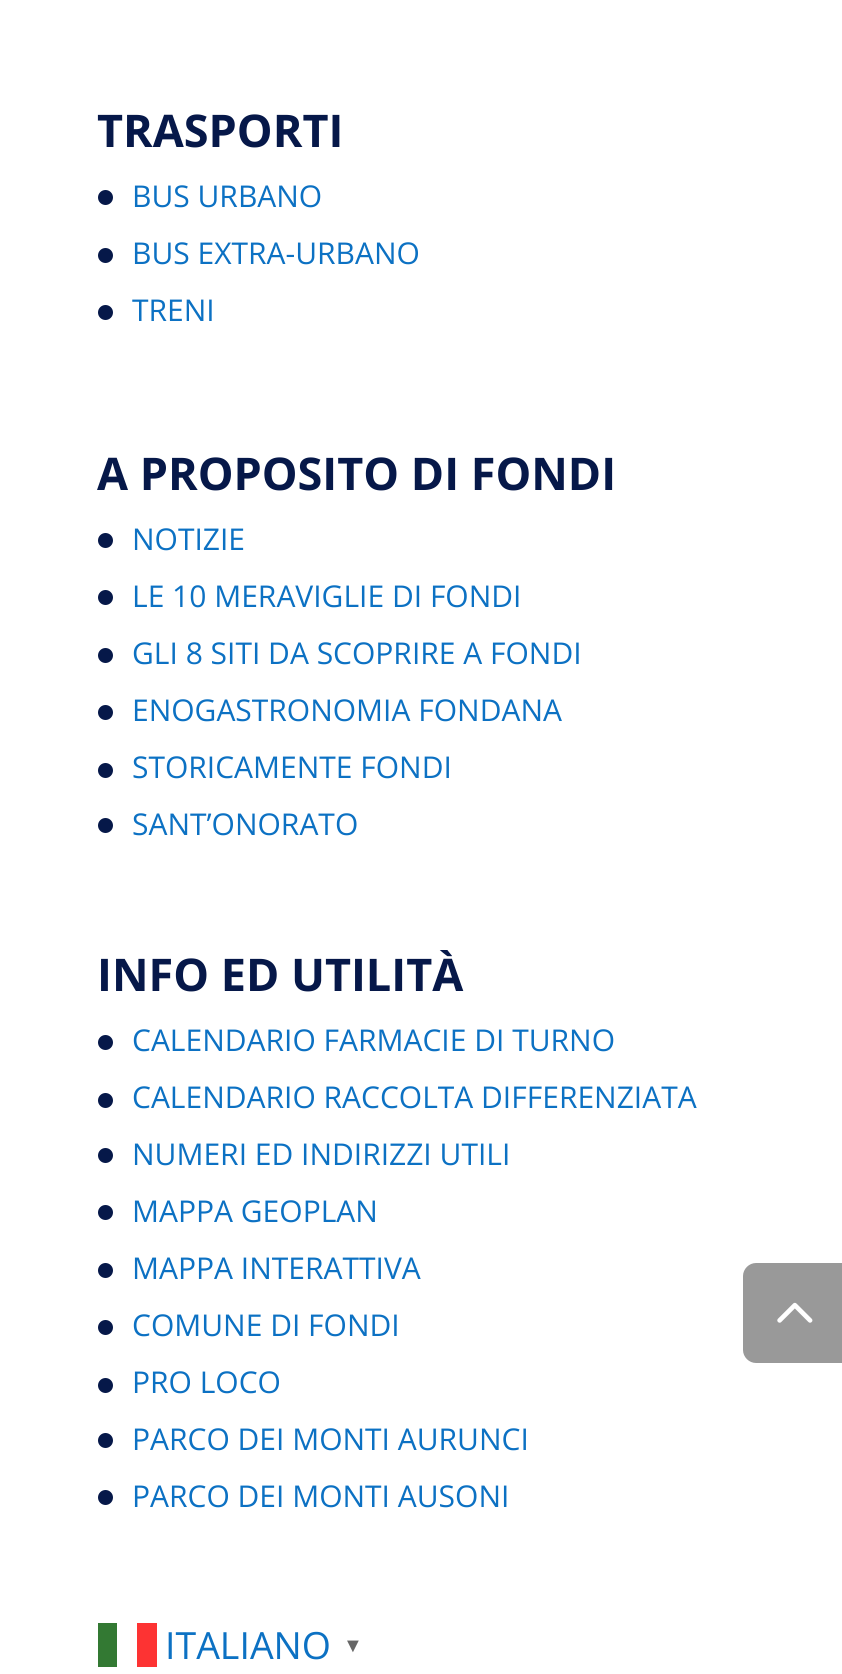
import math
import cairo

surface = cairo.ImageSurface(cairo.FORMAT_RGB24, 842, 1674)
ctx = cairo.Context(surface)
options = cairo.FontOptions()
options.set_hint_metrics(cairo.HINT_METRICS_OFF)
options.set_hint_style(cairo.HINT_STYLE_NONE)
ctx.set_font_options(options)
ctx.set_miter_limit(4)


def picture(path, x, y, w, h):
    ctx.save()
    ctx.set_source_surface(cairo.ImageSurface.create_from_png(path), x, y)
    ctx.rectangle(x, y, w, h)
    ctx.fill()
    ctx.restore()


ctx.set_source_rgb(1, 1, 1)
ctx.paint()
ctx.select_font_face("Open Sans", cairo.FONT_SLANT_NORMAL, cairo.FONT_WEIGHT_BOLD)
ctx.set_font_size(45)
ctx.set_source_rgb(0.027, 0.094, 0.286)
ctx.move_to(97, 147)
ctx.show_text("TRASPORTI")
ctx.new_path()
ctx.arc(105.5, 197.5, 7.5, 0, 2 * math.pi)
ctx.fill()
ctx.select_font_face("Open Sans")
ctx.set_font_size(30)
ctx.set_source_rgb(0.047, 0.443, 0.765)
ctx.move_to(132, 207)
ctx.show_text("BUS URBANO")
ctx.set_source_rgb(0.027, 0.094, 0.286)
ctx.new_path()
ctx.arc(105.5, 255.5, 7.5, 0, 2 * math.pi)
ctx.fill()
ctx.set_source_rgb(0.047, 0.443, 0.765)
ctx.move_to(132, 264)
ctx.show_text("BUS EXTRA-URBANO")
ctx.set_source_rgb(0.027, 0.094, 0.286)
ctx.new_path()
ctx.arc(105.5, 312.5, 7.5, 0, 2 * math.pi)
ctx.fill()
ctx.set_source_rgb(0.047, 0.443, 0.765)
ctx.move_to(132, 321)
ctx.show_text("TRENI")
ctx.select_font_face("Open Sans", cairo.FONT_SLANT_NORMAL, cairo.FONT_WEIGHT_BOLD)
ctx.set_font_size(45)
ctx.set_source_rgb(0.027, 0.094, 0.286)
ctx.move_to(97, 490)
ctx.show_text("A PROPOSITO DI FONDI")
ctx.new_path()
ctx.arc(105.5, 540.5, 7.5, 0, 2 * math.pi)
ctx.fill()
ctx.select_font_face("Open Sans")
ctx.set_font_size(30)
ctx.set_source_rgb(0.047, 0.443, 0.765)
ctx.move_to(132, 550)
ctx.show_text("NOTIZIE")
ctx.set_source_rgb(0.027, 0.094, 0.286)
ctx.new_path()
ctx.arc(105.5, 597.5, 7.5, 0, 2 * math.pi)
ctx.fill()
ctx.set_source_rgb(0.047, 0.443, 0.765)
ctx.move_to(132, 607)
ctx.show_text("LE 10 MERAVIGLIE DI FONDI")
ctx.set_source_rgb(0.027, 0.094, 0.286)
ctx.new_path()
ctx.arc(105.5, 655.5, 7.5, 0, 2 * math.pi)
ctx.fill()
ctx.set_source_rgb(0.047, 0.443, 0.765)
ctx.move_to(132, 664)
ctx.show_text("GLI 8 SITI DA SCOPRIRE A FONDI")
ctx.set_source_rgb(0.027, 0.094, 0.286)
ctx.new_path()
ctx.arc(105.5, 712.5, 7.5, 0, 2 * math.pi)
ctx.fill()
ctx.set_source_rgb(0.047, 0.443, 0.765)
ctx.move_to(132, 721)
ctx.show_text("ENOGASTRONOMIA FONDANA")
ctx.set_source_rgb(0.027, 0.094, 0.286)
ctx.new_path()
ctx.arc(105.5, 770.5, 7.5, 0, 2 * math.pi)
ctx.fill()
ctx.set_source_rgb(0.047, 0.443, 0.765)
ctx.move_to(132, 778)
ctx.show_text("STORICAMENTE FONDI")
ctx.set_source_rgb(0.027, 0.094, 0.286)
ctx.new_path()
ctx.arc(105.5, 825.5, 7.5, 0, 2 * math.pi)
ctx.fill()
ctx.set_source_rgb(0.047, 0.443, 0.765)
ctx.move_to(132, 835)
ctx.show_text("SANT’ONORATO")
ctx.save()
ctx.rectangle(85, 950, 673, 610)
ctx.clip()
ctx.select_font_face("Open Sans", cairo.FONT_SLANT_NORMAL, cairo.FONT_WEIGHT_BOLD)
ctx.set_font_size(45)
ctx.set_source_rgb(0.027, 0.094, 0.286)
ctx.move_to(97, 991)
ctx.show_text("INFO ED UTILITÀ")
ctx.restore()
ctx.set_source_rgb(0.027, 0.094, 0.286)
ctx.new_path()
ctx.arc(105.5, 1042.5, 7.5, 0, 2 * math.pi)
ctx.fill()
ctx.set_source_rgb(0.047, 0.443, 0.765)
ctx.move_to(132, 1051)
ctx.show_text("CALENDARIO FARMACIE DI TURNO")
ctx.set_source_rgb(0.027, 0.094, 0.286)
ctx.new_path()
ctx.arc(105.5, 1100.5, 7.5, 0, 2 * math.pi)
ctx.fill()
ctx.set_source_rgb(0.047, 0.443, 0.765)
ctx.move_to(132, 1108)
ctx.show_text("CALENDARIO RACCOLTA DIFFERENZIATA")
ctx.set_source_rgb(0.027, 0.094, 0.286)
ctx.new_path()
ctx.arc(105.5, 1155.5, 7.5, 0, 2 * math.pi)
ctx.fill()
ctx.set_source_rgb(0.047, 0.443, 0.765)
ctx.move_to(132, 1165)
ctx.show_text("NUMERI ED INDIRIZZI UTILI")
ctx.set_source_rgb(0.027, 0.094, 0.286)
ctx.new_path()
ctx.arc(105.5, 1212.5, 7.5, 0, 2 * math.pi)
ctx.fill()
ctx.set_source_rgb(0.047, 0.443, 0.765)
ctx.move_to(132, 1222)
ctx.show_text("MAPPA GEOPLAN")
ctx.set_source_rgb(0.027, 0.094, 0.286)
ctx.new_path()
ctx.arc(105.5, 1270.5, 7.5, 0, 2 * math.pi)
ctx.fill()
ctx.set_source_rgb(0.047, 0.443, 0.765)
ctx.move_to(132, 1279)
ctx.show_text("MAPPA INTERATTIVA")
ctx.set_source_rgb(0.027, 0.094, 0.286)
ctx.new_path()
ctx.arc(105.5, 1327.5, 7.5, 0, 2 * math.pi)
ctx.fill()
ctx.set_source_rgb(0.047, 0.443, 0.765)
ctx.move_to(132, 1336)
ctx.show_text("COMUNE DI FONDI")
ctx.set_source_rgb(0.027, 0.094, 0.286)
ctx.new_path()
ctx.arc(105.5, 1385.5, 7.5, 0, 2 * math.pi)
ctx.fill()
ctx.set_source_rgb(0.047, 0.443, 0.765)
ctx.move_to(132, 1393)
ctx.show_text("PRO LOCO")
ctx.set_source_rgb(0.027, 0.094, 0.286)
ctx.new_path()
ctx.arc(105.5, 1440.5, 7.5, 0, 2 * math.pi)
ctx.fill()
ctx.set_source_rgb(0.047, 0.443, 0.765)
ctx.move_to(132, 1450)
ctx.show_text("PARCO DEI MONTI AURUNCI")
ctx.set_source_rgb(0.027, 0.094, 0.286)
ctx.new_path()
ctx.arc(105.5, 1497.5, 7.5, 0, 2 * math.pi)
ctx.fill()
ctx.set_source_rgb(0.047, 0.443, 0.765)
ctx.move_to(132, 1507)
ctx.show_text("PARCO DEI MONTI AUSONI")
ctx.set_font_size(37.5)
ctx.move_to(165, 1659)
ctx.show_text("ITALIANO")
ctx.set_source_rgb(0.2, 0.475, 0.2)
ctx.rectangle(98, 1623, 19, 44)
ctx.fill()
ctx.set_source_rgb(0.992, 0.2, 0.2)
ctx.rectangle(137, 1623, 20, 44)
ctx.fill()
ctx.select_font_face("Liberation Sans", cairo.FONT_SLANT_NORMAL, cairo.FONT_WEIGHT_BOLD)
ctx.set_font_size(20)
ctx.set_source_rgb(0.4, 0.4, 0.4)
ctx.move_to(343, 1652)
ctx.show_text("▼")
ctx.set_source_rgb(0.6, 0.6, 0.6)
ctx.new_path()
ctx.move_to(756, 1263)
ctx.line_to(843, 1263)
ctx.line_to(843, 1363)
ctx.line_to(756, 1363)
ctx.curve_to(749, 1363, 743, 1357, 743, 1350)
ctx.line_to(743, 1276)
ctx.curve_to(743, 1269, 749, 1263, 756, 1263)
ctx.close_path()
ctx.fill()
picture("img1.png", 777, 1302, 36, 21)
surface.write_to_png("page.png")
